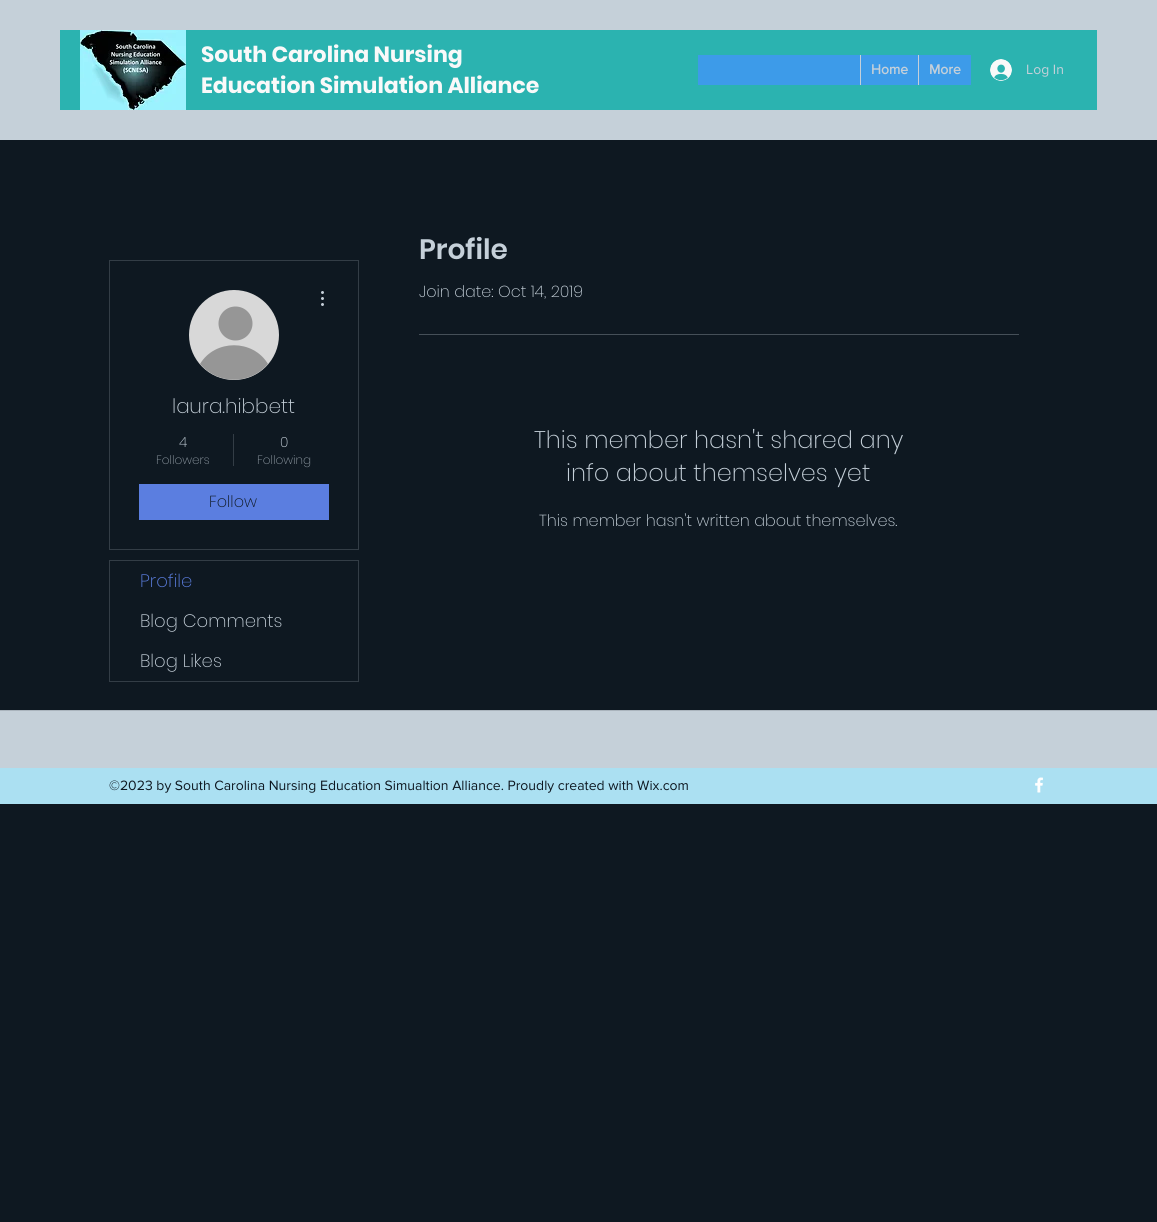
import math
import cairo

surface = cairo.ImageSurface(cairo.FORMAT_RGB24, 1157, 1222)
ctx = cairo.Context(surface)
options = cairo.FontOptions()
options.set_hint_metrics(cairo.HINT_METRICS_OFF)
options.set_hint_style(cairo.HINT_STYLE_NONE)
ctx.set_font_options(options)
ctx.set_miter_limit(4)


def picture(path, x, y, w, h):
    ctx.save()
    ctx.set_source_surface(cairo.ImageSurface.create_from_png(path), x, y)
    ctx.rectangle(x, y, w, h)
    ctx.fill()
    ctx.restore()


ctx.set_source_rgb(0.055, 0.094, 0.129)
ctx.paint()
ctx.set_source_rgb(0.773, 0.816, 0.851)
ctx.rectangle(0, 0, 1157, 140)
ctx.fill()
ctx.set_source_rgb(0.169, 0.702, 0.69)
ctx.rectangle(60, 30, 1037, 80)
ctx.fill()
picture("img1.png", 80, 30, 106, 80)
ctx.select_font_face("Poppins", cairo.FONT_SLANT_NORMAL, cairo.FONT_WEIGHT_BOLD)
ctx.set_font_size(22)
ctx.set_source_rgb(0.976, 0.976, 0.976)
ctx.move_to(201, 62)
ctx.show_text("South Carolina Nursing")
ctx.move_to(201, 93)
ctx.show_text("Education Simulation Alliance")
ctx.set_source_rgb(0.239, 0.608, 0.914)
ctx.rectangle(698, 55, 273, 30)
ctx.fill()
ctx.set_source_rgb(0.773, 0.816, 0.851)
ctx.rectangle(860, 55, 1, 30)
ctx.fill()
ctx.select_font_face("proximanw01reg", cairo.FONT_SLANT_NORMAL, cairo.FONT_WEIGHT_BOLD)
ctx.set_font_size(14)
ctx.move_to(871, 74)
ctx.show_text("Home")
ctx.rectangle(918, 55, 1, 30)
ctx.fill()
ctx.move_to(929, 74)
ctx.show_text("More")
picture("img2.png", 990, 59, 22, 22)
ctx.select_font_face("proximanw01reg")
ctx.move_to(1026, 74)
ctx.show_text("Log In")
ctx.rectangle(109.5, 260.5, 249, 289)
ctx.set_source_rgb(0.2, 0.239, 0.275)
ctx.set_line_width(1)
ctx.stroke()
ctx.set_source_rgb(0.847, 0.847, 0.847)
ctx.arc(234, 335, 45, 0, 2 * math.pi)
ctx.fill()
ctx.set_source_rgb(0.588, 0.588, 0.588)
ctx.arc(235.5, 323.5, 17, 0, 2 * math.pi)
ctx.fill()
ctx.new_path()
ctx.move_to(268, 364)
ctx.curve_to(250, 385, 218, 385, 200, 364)
ctx.curve_to(215, 339, 253, 339, 268, 364)
ctx.close_path()
ctx.fill()
picture("img3.png", 321, 291, 3, 15)
ctx.select_font_face("Poppins ExtraLight")
ctx.set_font_size(20)
ctx.set_source_rgb(0.773, 0.816, 0.851)
ctx.move_to(172, 413)
ctx.show_text("laura.hibbett")
ctx.set_font_size(14)
ctx.move_to(179, 447)
ctx.show_text("4")
ctx.set_font_size(12)
ctx.set_source_rgb(0.557, 0.6, 0.635)
ctx.move_to(156, 464)
ctx.show_text("Followers")
ctx.set_source_rgb(0.2, 0.239, 0.275)
ctx.rectangle(233, 434, 1, 32)
ctx.fill()
ctx.set_font_size(14)
ctx.set_source_rgb(0.773, 0.816, 0.851)
ctx.move_to(280, 447)
ctx.show_text("0")
ctx.set_font_size(12)
ctx.set_source_rgb(0.557, 0.6, 0.635)
ctx.move_to(257, 464)
ctx.show_text("Following")
ctx.set_source_rgb(0.357, 0.494, 0.878)
ctx.rectangle(139, 484, 190, 36)
ctx.fill()
ctx.set_font_size(16)
ctx.set_source_rgb(0.055, 0.094, 0.129)
ctx.move_to(209, 507)
ctx.show_text("Follow")
ctx.rectangle(109.5, 560.5, 249, 121)
ctx.set_source_rgb(0.2, 0.239, 0.275)
ctx.stroke()
ctx.set_font_size(18)
ctx.set_source_rgb(0.357, 0.494, 0.878)
ctx.move_to(140, 587)
ctx.show_text("Profile")
ctx.set_source_rgb(0.773, 0.816, 0.851)
ctx.move_to(140, 627)
ctx.show_text("Blog Comments")
ctx.move_to(140, 667)
ctx.show_text("Blog Likes")
ctx.select_font_face("Poppins SemiBold")
ctx.set_font_size(28)
ctx.move_to(419, 259)
ctx.show_text("Profile")
ctx.select_font_face("Poppins ExtraLight")
ctx.set_font_size(16)
ctx.move_to(419, 297)
ctx.show_text("Join date: Oct 14, 2019")
ctx.set_source_rgb(0.271, 0.31, 0.345)
ctx.rectangle(419, 334, 600, 1)
ctx.fill()
ctx.set_font_size(24)
ctx.set_source_rgb(0.773, 0.816, 0.851)
ctx.move_to(534, 448)
ctx.show_text("This member hasn't shared any")
ctx.move_to(566, 481)
ctx.show_text("info about themselves yet")
ctx.set_font_size(16)
ctx.move_to(539, 526)
ctx.show_text("This member hasn't written about themselves.")
ctx.rectangle(0, 711, 1157, 57)
ctx.fill()
ctx.set_source_rgb(0.667, 0.706, 0.741)
ctx.rectangle(0, 710, 1157, 1)
ctx.fill()
ctx.set_source_rgb(0.671, 0.878, 0.949)
ctx.rectangle(0, 768, 1157, 36)
ctx.fill()
ctx.select_font_face("proximanw01reg")
ctx.set_font_size(14)
ctx.set_source_rgb(0.055, 0.094, 0.129)
ctx.move_to(109, 790)
ctx.show_text("©2023 by South Carolina Nursing Education Simualtion Alliance. Proudly created with Wix.com")
picture("img4.png", 1035, 777, 8, 16)
surface.write_to_png("page.png")
